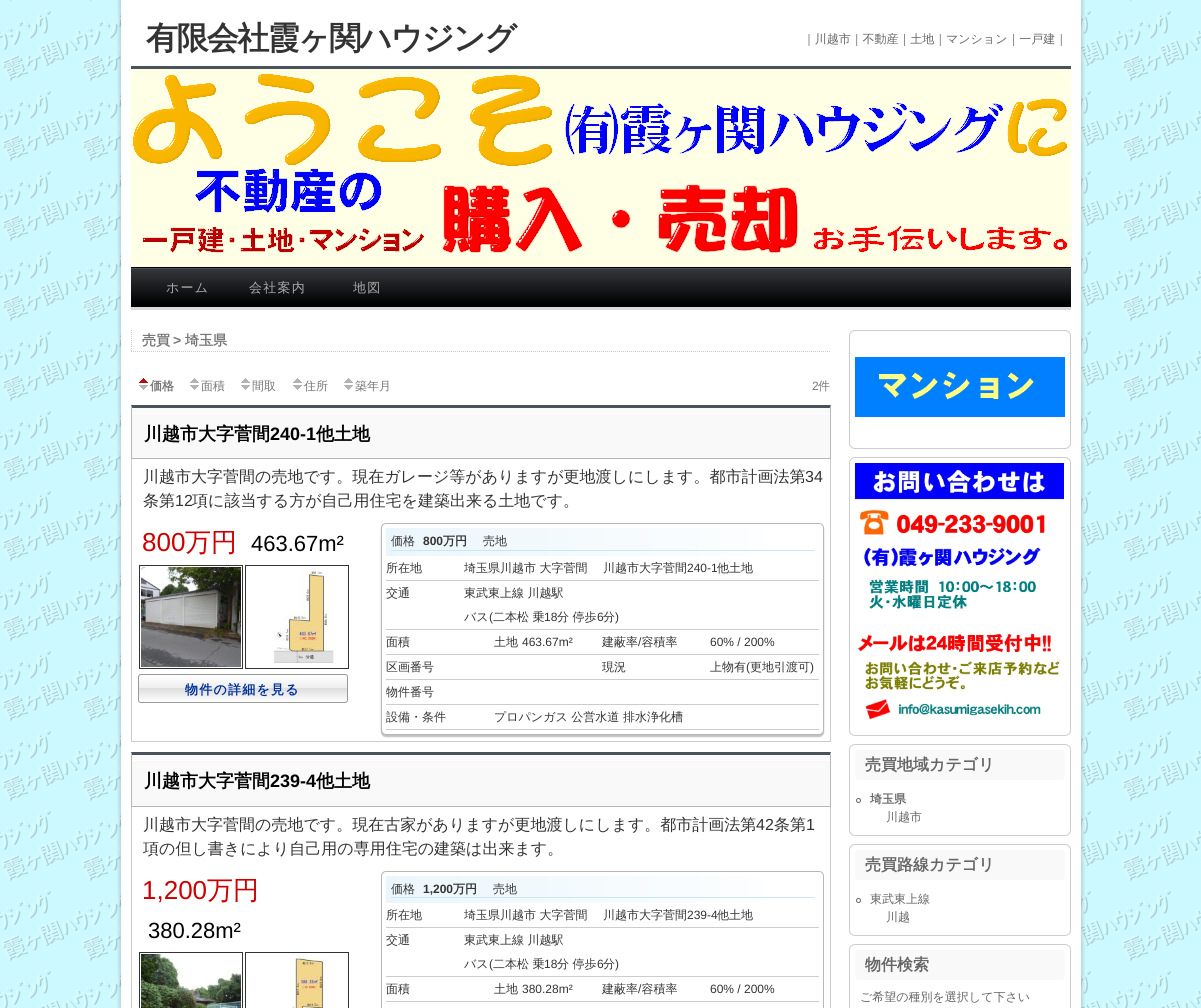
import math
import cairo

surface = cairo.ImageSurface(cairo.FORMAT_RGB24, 1201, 1008)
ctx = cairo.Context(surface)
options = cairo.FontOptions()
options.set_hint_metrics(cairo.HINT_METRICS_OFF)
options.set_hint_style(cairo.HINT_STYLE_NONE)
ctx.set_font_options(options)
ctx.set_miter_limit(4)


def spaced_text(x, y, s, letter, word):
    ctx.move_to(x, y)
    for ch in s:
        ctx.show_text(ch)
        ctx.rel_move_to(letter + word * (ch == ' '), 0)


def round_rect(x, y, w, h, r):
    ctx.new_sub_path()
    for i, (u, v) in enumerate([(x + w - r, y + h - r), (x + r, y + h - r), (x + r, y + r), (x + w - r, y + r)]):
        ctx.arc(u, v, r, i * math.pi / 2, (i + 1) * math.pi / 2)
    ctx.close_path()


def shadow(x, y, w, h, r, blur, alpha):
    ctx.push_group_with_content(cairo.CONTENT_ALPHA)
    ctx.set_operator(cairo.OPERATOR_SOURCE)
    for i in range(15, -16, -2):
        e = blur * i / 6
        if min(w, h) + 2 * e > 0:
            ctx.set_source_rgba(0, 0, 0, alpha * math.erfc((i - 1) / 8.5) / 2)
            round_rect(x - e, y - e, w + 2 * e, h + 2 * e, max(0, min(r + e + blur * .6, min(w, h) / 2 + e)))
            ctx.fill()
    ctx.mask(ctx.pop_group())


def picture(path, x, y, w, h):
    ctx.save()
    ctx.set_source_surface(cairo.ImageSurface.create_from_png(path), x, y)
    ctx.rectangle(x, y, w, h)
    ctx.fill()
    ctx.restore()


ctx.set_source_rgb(1, 1, 1)
ctx.paint()
picture("img1.png", 0, 0, 1201, 1008)
picture("img2.png", 117, 0, 968, 1008)
ctx.select_font_face("WenQuanYi Zen Hei", cairo.FONT_SLANT_NORMAL, cairo.FONT_WEIGHT_BOLD)
ctx.set_font_size(32)
ctx.set_source_rgb(0.2, 0.2, 0.2)
spaced_text(146, 49, "有限会社霞ヶ関ハウジング", -1.6, 0)
ctx.select_font_face("WenQuanYi Zen Hei Medium")
ctx.set_font_size(12)
ctx.set_source_rgb(0.4, 0.4, 0.4)
ctx.move_to(803, 43)
ctx.show_text("｜川越市｜不動産｜土地｜マンション｜一戸建｜")
ctx.set_source_rgb(0.29, 0.325, 0.365)
ctx.rectangle(131, 66, 940, 3)
ctx.fill()
ctx.set_source_rgb(0, 0, 0)
ctx.rectangle(131, 267, 940, 1)
ctx.fill()
picture("img3.png", 131, 69, 940, 198)
gradient = cairo.LinearGradient(131, 269, 131, 307)
gradient.add_color_stop_rgba(0, 0.204, 0.216, 0.227, 1)
gradient.add_color_stop_rgba(0.93, 0, 0, 0, 1)
ctx.set_source(gradient)
ctx.rectangle(131, 269, 940, 38)
ctx.fill()
ctx.set_source_rgb(0.29, 0.325, 0.365)
ctx.rectangle(131, 268, 940, 1)
ctx.fill()
ctx.set_source_rgb(0.851, 0.851, 0.851)
ctx.rectangle(131, 307, 940, 3)
ctx.fill()
ctx.set_font_size(13)
ctx.set_source_rgb(0.667, 0.667, 0.667)
spaced_text(166, 292, "ホーム", 1.25, 0)
spaced_text(249, 292, "会社案内", 1.25, 0)
spaced_text(353, 292, "地図", 1.25, 0)
ctx.new_path()
ctx.move_to(131, 351.5)
ctx.line_to(831, 351.5)
ctx.set_source_rgb(0.8, 0.8, 0.8)
ctx.set_line_width(1)
ctx.set_dash([1, 1])
ctx.stroke()
ctx.new_path()
ctx.move_to(131.5, 330)
ctx.line_to(131.5, 352)
ctx.stroke()
ctx.select_font_face("WenQuanYi Zen Hei", cairo.FONT_SLANT_NORMAL, cairo.FONT_WEIGHT_BOLD)
ctx.set_font_size(14)
ctx.set_source_rgb(0.467, 0.467, 0.467)
ctx.move_to(142, 345)
ctx.show_text("売買")
ctx.select_font_face("Liberation Sans", cairo.FONT_SLANT_NORMAL, cairo.FONT_WEIGHT_BOLD)
ctx.move_to(173, 345)
ctx.show_text(">")
ctx.select_font_face("WenQuanYi Zen Hei", cairo.FONT_SLANT_NORMAL, cairo.FONT_WEIGHT_BOLD)
ctx.move_to(185, 345)
ctx.show_text("埼玉県")
picture("img4.png", 139, 378, 9, 12)
ctx.set_font_size(12)
ctx.move_to(150, 390)
ctx.show_text("価格")
picture("img5.png", 190, 378, 9, 12)
ctx.select_font_face("WenQuanYi Zen Hei Medium")
ctx.move_to(201, 390)
ctx.show_text("面積")
picture("img5.png", 241, 378, 9, 12)
ctx.move_to(252, 390)
ctx.show_text("間取")
picture("img5.png", 293, 378, 9, 12)
ctx.move_to(304, 390)
ctx.show_text("住所")
picture("img5.png", 344, 378, 9, 12)
ctx.move_to(355, 390)
ctx.show_text("築年月")
ctx.select_font_face("Liberation Sans")
ctx.move_to(812, 390)
ctx.show_text("2")
ctx.select_font_face("WenQuanYi Zen Hei Medium")
ctx.move_to(818, 390)
ctx.show_text("件")
ctx.set_source_rgb(0.29, 0.325, 0.365)
ctx.new_path()
ctx.move_to(131, 405)
ctx.line_to(831, 405)
ctx.line_to(830, 408)
ctx.line_to(132, 408)
ctx.close_path()
ctx.fill()
ctx.set_source_rgb(0.718, 0.718, 0.718)
ctx.new_path()
ctx.move_to(831, 405)
ctx.line_to(831, 459)
ctx.line_to(830, 458)
ctx.line_to(830, 408)
ctx.close_path()
ctx.fill()
ctx.rectangle(131, 458, 700, 1)
ctx.fill()
ctx.new_path()
ctx.move_to(131, 459)
ctx.line_to(131, 405)
ctx.line_to(132, 408)
ctx.line_to(132, 458)
ctx.close_path()
ctx.fill()
ctx.set_source_rgb(0.973, 0.973, 0.973)
ctx.rectangle(132, 408, 698, 50)
ctx.fill()
ctx.set_source_rgb(1, 1, 1)
ctx.rectangle(132, 413, 698, 1)
ctx.fill()
ctx.select_font_face("WenQuanYi Zen Hei", cairo.FONT_SLANT_NORMAL, cairo.FONT_WEIGHT_BOLD)
ctx.set_font_size(18)
ctx.set_source_rgb(0, 0, 0)
ctx.move_to(144, 440)
ctx.show_text("川越市大字菅間")
ctx.select_font_face("Liberation Sans", cairo.FONT_SLANT_NORMAL, cairo.FONT_WEIGHT_BOLD)
ctx.move_to(270, 440)
ctx.show_text("240-1")
ctx.select_font_face("WenQuanYi Zen Hei", cairo.FONT_SLANT_NORMAL, cairo.FONT_WEIGHT_BOLD)
ctx.move_to(316, 440)
ctx.show_text("他土地")
ctx.set_source_rgb(0.8, 0.8, 0.8)
ctx.rectangle(830, 459, 1, 283)
ctx.fill()
ctx.rectangle(131, 741, 700, 1)
ctx.fill()
ctx.rectangle(131, 459, 1, 283)
ctx.fill()
ctx.select_font_face("WenQuanYi Zen Hei Medium")
ctx.set_font_size(16)
ctx.set_source_rgb(0.2, 0.2, 0.2)
ctx.move_to(143, 482)
ctx.show_text("川越市大字菅間の売地です。現在ガレージ等がありますが更地渡しにします。都市計画法第")
ctx.select_font_face("Liberation Sans")
ctx.move_to(805, 482)
ctx.show_text("34")
ctx.select_font_face("WenQuanYi Zen Hei Medium")
ctx.move_to(143, 506)
ctx.show_text("条第")
ctx.select_font_face("Liberation Sans")
ctx.move_to(175, 506)
ctx.show_text("12")
ctx.select_font_face("WenQuanYi Zen Hei Medium")
ctx.move_to(192, 506)
ctx.show_text("項に該当する方が自己用住宅を建築出来る土地です。")
ctx.select_font_face("Liberation Sans")
ctx.set_font_size(26)
ctx.set_source_rgb(0.8, 0, 0)
ctx.move_to(142, 551)
ctx.show_text("800")
ctx.select_font_face("WenQuanYi Zen Hei Medium")
ctx.move_to(185, 551)
ctx.show_text("万円")
ctx.select_font_face("Liberation Sans")
ctx.set_font_size(22)
ctx.set_source_rgb(0, 0, 0)
ctx.move_to(251, 551)
ctx.show_text("463.67m²")
ctx.rectangle(139.5, 565.5, 103, 103)
ctx.set_source_rgb(0.2, 0.2, 0.2)
ctx.set_dash([])
ctx.stroke()
picture("img6.png", 141, 567, 100, 100)
ctx.rectangle(245.5, 565.5, 103, 103)
ctx.stroke()
picture("img7.png", 273, 567, 61, 96)
ctx.save()
round_rect(138, 674, 210, 29, 3)
ctx.clip()
gradient = cairo.LinearGradient(139, 675, 139, 702)
gradient.add_color_stop_rgba(0, 1, 1, 1, 1)
gradient.add_color_stop_rgba(0.49, 0.933, 0.933, 0.933, 1)
gradient.add_color_stop_rgba(0.5, 0.867, 0.867, 0.867, 1)
gradient.add_color_stop_rgba(1, 1, 1, 1, 1)
ctx.set_source(gradient)
ctx.rectangle(138, 675, 210, 27)
ctx.fill()
ctx.restore()
round_rect(138.5, 674.5, 209, 28, 2.5)
ctx.set_source_rgb(0.6, 0.6, 0.6)
ctx.stroke()
ctx.select_font_face("WenQuanYi Zen Hei", cairo.FONT_SLANT_NORMAL, cairo.FONT_WEIGHT_BOLD)
ctx.set_font_size(13)
ctx.set_source_rgb(0, 0.196, 0.608)
spaced_text(185, 694, "物件の詳細を見る", 1.25, 0)
ctx.set_source_rgb(0.745, 0.761, 0.776)
shadow(381, 525, 443, 212, 5, 0.5, 1)
ctx.set_source_rgb(1, 1, 1)
round_rect(381.5, 523.5, 442, 211, 4.5)
ctx.fill_preserve()
ctx.set_source_rgb(0.718, 0.718, 0.718)
ctx.stroke()
gradient = cairo.LinearGradient(386, 528, 819, 528)
gradient.add_color_stop_rgba(0, 0.922, 0.965, 0.988, 1)
gradient.add_color_stop_rgba(1, 1, 1, 1, 1)
ctx.set_source(gradient)
ctx.rectangle(386, 528, 379, 28)
ctx.fill()
ctx.set_source_rgb(0.792, 0.906, 0.957)
ctx.rectangle(391, 550, 423, 1)
ctx.fill()
ctx.select_font_face("WenQuanYi Zen Hei Medium")
ctx.set_font_size(12)
ctx.set_source_rgb(0.2, 0.2, 0.2)
ctx.move_to(391, 545)
ctx.show_text("価格")
ctx.select_font_face("Liberation Sans", cairo.FONT_SLANT_NORMAL, cairo.FONT_WEIGHT_BOLD)
ctx.move_to(423, 545)
ctx.show_text("800")
ctx.select_font_face("WenQuanYi Zen Hei", cairo.FONT_SLANT_NORMAL, cairo.FONT_WEIGHT_BOLD)
ctx.move_to(443, 545)
ctx.show_text("万円")
ctx.select_font_face("WenQuanYi Zen Hei Medium")
ctx.move_to(483, 545)
ctx.show_text("売地")
ctx.set_source_rgb(0.8, 0.8, 0.8)
ctx.rectangle(386, 580, 433, 1)
ctx.fill()
ctx.set_source_rgb(0.2, 0.2, 0.2)
ctx.move_to(386, 572)
ctx.show_text("所在地")
ctx.move_to(464, 572)
ctx.show_text("埼玉県川越市 大字菅間")
ctx.move_to(603, 572)
ctx.show_text("川越市大字菅間")
ctx.select_font_face("Liberation Sans")
ctx.move_to(687, 572)
ctx.show_text("240-1")
ctx.select_font_face("WenQuanYi Zen Hei Medium")
ctx.move_to(717, 572)
ctx.show_text("他土地")
ctx.set_source_rgb(0.8, 0.8, 0.8)
ctx.rectangle(386, 629, 433, 1)
ctx.fill()
ctx.set_source_rgb(0.2, 0.2, 0.2)
ctx.move_to(386, 597)
ctx.show_text("交通")
ctx.move_to(464, 597)
ctx.show_text("東武東上線 川越駅")
ctx.move_to(464, 621)
ctx.show_text("バス")
ctx.select_font_face("Liberation Sans")
ctx.move_to(489, 621)
ctx.show_text("(")
ctx.select_font_face("WenQuanYi Zen Hei Medium")
ctx.move_to(493, 621)
ctx.show_text("二本松 乗")
ctx.select_font_face("Liberation Sans")
ctx.move_to(544, 621)
ctx.show_text("18")
ctx.select_font_face("WenQuanYi Zen Hei Medium")
ctx.move_to(557, 621)
ctx.show_text("分 停歩")
ctx.select_font_face("Liberation Sans")
ctx.move_to(597, 621)
ctx.show_text("6")
ctx.select_font_face("WenQuanYi Zen Hei Medium")
ctx.move_to(603, 621)
ctx.show_text("分")
ctx.select_font_face("Liberation Sans")
ctx.move_to(615, 621)
ctx.show_text(")")
ctx.set_source_rgb(0.8, 0.8, 0.8)
ctx.rectangle(386, 654, 433, 1)
ctx.fill()
ctx.select_font_face("WenQuanYi Zen Hei Medium")
ctx.set_source_rgb(0.2, 0.2, 0.2)
ctx.move_to(386, 646)
ctx.show_text("面積")
ctx.move_to(494, 646)
ctx.show_text("土地")
ctx.select_font_face("Liberation Sans")
ctx.move_to(522, 646)
ctx.show_text("463.67m²")
ctx.select_font_face("WenQuanYi Zen Hei Medium")
ctx.move_to(602, 646)
ctx.show_text("建蔽率 容積率")
ctx.select_font_face("Liberation Sans")
ctx.move_to(638, 646)
ctx.show_text("/")
ctx.move_to(710, 646)
ctx.show_text("60% / 200%")
ctx.set_source_rgb(0.8, 0.8, 0.8)
ctx.rectangle(386, 679, 433, 1)
ctx.fill()
ctx.select_font_face("WenQuanYi Zen Hei Medium")
ctx.set_source_rgb(0.2, 0.2, 0.2)
ctx.move_to(386, 671)
ctx.show_text("区画番号")
ctx.move_to(602, 671)
ctx.show_text("現況")
ctx.move_to(710, 671)
ctx.show_text("上物有")
ctx.select_font_face("Liberation Sans")
ctx.move_to(746, 671)
ctx.show_text("(")
ctx.select_font_face("WenQuanYi Zen Hei Medium")
ctx.move_to(750, 671)
ctx.show_text("更地引渡可")
ctx.select_font_face("Liberation Sans")
ctx.move_to(810, 671)
ctx.show_text(")")
ctx.set_source_rgb(0.8, 0.8, 0.8)
ctx.rectangle(386, 704, 433, 1)
ctx.fill()
ctx.select_font_face("WenQuanYi Zen Hei Medium")
ctx.set_source_rgb(0.2, 0.2, 0.2)
ctx.move_to(386, 696)
ctx.show_text("物件番号")
ctx.set_source_rgb(0.8, 0.8, 0.8)
ctx.rectangle(386, 729, 433, 1)
ctx.fill()
ctx.set_source_rgb(0.2, 0.2, 0.2)
ctx.move_to(386, 721)
ctx.show_text("設備・条件")
ctx.move_to(494, 721)
ctx.show_text("プロパンガス 公営水道 排水浄化槽")
ctx.set_source_rgb(0.29, 0.325, 0.365)
ctx.new_path()
ctx.move_to(131, 752)
ctx.line_to(831, 752)
ctx.line_to(830, 755)
ctx.line_to(132, 755)
ctx.close_path()
ctx.fill()
ctx.set_source_rgb(0.718, 0.718, 0.718)
ctx.new_path()
ctx.move_to(831, 752)
ctx.line_to(831, 807)
ctx.line_to(830, 806)
ctx.line_to(830, 755)
ctx.close_path()
ctx.fill()
ctx.rectangle(131, 806, 700, 1)
ctx.fill()
ctx.new_path()
ctx.move_to(131, 807)
ctx.line_to(131, 752)
ctx.line_to(132, 755)
ctx.line_to(132, 806)
ctx.close_path()
ctx.fill()
ctx.set_source_rgb(0.973, 0.973, 0.973)
ctx.rectangle(132, 755, 698, 51)
ctx.fill()
ctx.set_source_rgb(1, 1, 1)
ctx.rectangle(132, 760, 698, 1)
ctx.fill()
ctx.select_font_face("WenQuanYi Zen Hei", cairo.FONT_SLANT_NORMAL, cairo.FONT_WEIGHT_BOLD)
ctx.set_font_size(18)
ctx.set_source_rgb(0, 0, 0)
ctx.move_to(144, 787)
ctx.show_text("川越市大字菅間")
ctx.select_font_face("Liberation Sans", cairo.FONT_SLANT_NORMAL, cairo.FONT_WEIGHT_BOLD)
ctx.move_to(270, 787)
ctx.show_text("239-4")
ctx.select_font_face("WenQuanYi Zen Hei", cairo.FONT_SLANT_NORMAL, cairo.FONT_WEIGHT_BOLD)
ctx.move_to(316, 787)
ctx.show_text("他土地")
ctx.set_source_rgb(0.8, 0.8, 0.8)
ctx.rectangle(830, 807, 1, 201)
ctx.fill()
ctx.rectangle(131, 807, 1, 201)
ctx.fill()
ctx.select_font_face("WenQuanYi Zen Hei Medium")
ctx.set_font_size(16)
ctx.set_source_rgb(0.2, 0.2, 0.2)
ctx.move_to(143, 830)
ctx.show_text("川越市大字菅間の売地です。現在古家がありますが更地渡しにします。都市計画法第")
ctx.select_font_face("Liberation Sans")
ctx.move_to(756, 830)
ctx.show_text("42")
ctx.select_font_face("WenQuanYi Zen Hei Medium")
ctx.move_to(774, 830)
ctx.show_text("条第")
ctx.select_font_face("Liberation Sans")
ctx.move_to(806, 830)
ctx.show_text("1")
ctx.select_font_face("WenQuanYi Zen Hei Medium")
ctx.move_to(143, 854)
ctx.show_text("項の但し書きにより自己用の専用住宅の建築は出来ます。")
ctx.select_font_face("Liberation Sans")
ctx.set_font_size(26)
ctx.set_source_rgb(0.8, 0, 0)
ctx.move_to(142, 899)
ctx.show_text("1,200")
ctx.select_font_face("WenQuanYi Zen Hei Medium")
ctx.move_to(207, 899)
ctx.show_text("万円")
ctx.select_font_face("Liberation Sans")
ctx.set_font_size(22)
ctx.set_source_rgb(0, 0, 0)
ctx.move_to(148, 938)
ctx.show_text("380.28m²")
ctx.rectangle(139.5, 952.5, 103, 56)
ctx.set_source_rgb(0.2, 0.2, 0.2)
ctx.stroke()
picture("img8.png", 141, 954, 100, 54)
ctx.rectangle(245.5, 952.5, 103, 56)
ctx.stroke()
picture("img9.png", 290, 954, 42, 54)
round_rect(381.5, 871.5, 442, 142, 4.5)
ctx.set_source_rgb(0.718, 0.718, 0.718)
ctx.stroke()
gradient = cairo.LinearGradient(386, 876, 819, 876)
gradient.add_color_stop_rgba(0, 0.922, 0.965, 0.988, 1)
gradient.add_color_stop_rgba(1, 1, 1, 1, 1)
ctx.set_source(gradient)
ctx.rectangle(386, 876, 379, 27)
ctx.fill()
ctx.set_source_rgb(0.792, 0.906, 0.957)
ctx.rectangle(391, 897, 423, 1)
ctx.fill()
ctx.select_font_face("WenQuanYi Zen Hei Medium")
ctx.set_font_size(12)
ctx.set_source_rgb(0.2, 0.2, 0.2)
ctx.move_to(391, 893)
ctx.show_text("価格")
ctx.select_font_face("Liberation Sans", cairo.FONT_SLANT_NORMAL, cairo.FONT_WEIGHT_BOLD)
ctx.move_to(423, 893)
ctx.show_text("1,200")
ctx.select_font_face("WenQuanYi Zen Hei", cairo.FONT_SLANT_NORMAL, cairo.FONT_WEIGHT_BOLD)
ctx.move_to(453, 893)
ctx.show_text("万円")
ctx.select_font_face("WenQuanYi Zen Hei Medium")
ctx.move_to(493, 893)
ctx.show_text("売地")
ctx.set_source_rgb(0.8, 0.8, 0.8)
ctx.rectangle(386, 927, 433, 1)
ctx.fill()
ctx.set_source_rgb(0.2, 0.2, 0.2)
ctx.move_to(386, 919)
ctx.show_text("所在地")
ctx.move_to(464, 919)
ctx.show_text("埼玉県川越市 大字菅間")
ctx.move_to(603, 919)
ctx.show_text("川越市大字菅間")
ctx.select_font_face("Liberation Sans")
ctx.move_to(687, 919)
ctx.show_text("239-4")
ctx.select_font_face("WenQuanYi Zen Hei Medium")
ctx.move_to(717, 919)
ctx.show_text("他土地")
ctx.set_source_rgb(0.8, 0.8, 0.8)
ctx.rectangle(386, 976, 433, 1)
ctx.fill()
ctx.set_source_rgb(0.2, 0.2, 0.2)
ctx.move_to(386, 944)
ctx.show_text("交通")
ctx.move_to(464, 944)
ctx.show_text("東武東上線 川越駅")
ctx.move_to(464, 968)
ctx.show_text("バス")
ctx.select_font_face("Liberation Sans")
ctx.move_to(489, 968)
ctx.show_text("(")
ctx.select_font_face("WenQuanYi Zen Hei Medium")
ctx.move_to(493, 968)
ctx.show_text("二本松 乗")
ctx.select_font_face("Liberation Sans")
ctx.move_to(544, 968)
ctx.show_text("18")
ctx.select_font_face("WenQuanYi Zen Hei Medium")
ctx.move_to(557, 968)
ctx.show_text("分 停歩")
ctx.select_font_face("Liberation Sans")
ctx.move_to(597, 968)
ctx.show_text("6")
ctx.select_font_face("WenQuanYi Zen Hei Medium")
ctx.move_to(603, 968)
ctx.show_text("分")
ctx.select_font_face("Liberation Sans")
ctx.move_to(615, 968)
ctx.show_text(")")
ctx.set_source_rgb(0.8, 0.8, 0.8)
ctx.rectangle(386, 1001, 433, 1)
ctx.fill()
ctx.select_font_face("WenQuanYi Zen Hei Medium")
ctx.set_source_rgb(0.2, 0.2, 0.2)
ctx.move_to(386, 993)
ctx.show_text("面積")
ctx.move_to(494, 993)
ctx.show_text("土地")
ctx.select_font_face("Liberation Sans")
ctx.move_to(522, 993)
ctx.show_text("380.28m²")
ctx.select_font_face("WenQuanYi Zen Hei Medium")
ctx.move_to(602, 993)
ctx.show_text("建蔽率 容積率")
ctx.select_font_face("Liberation Sans")
ctx.move_to(638, 993)
ctx.show_text("/")
ctx.move_to(710, 993)
ctx.show_text("60% / 200%")
round_rect(849.5, 330.5, 221, 118, 5.5)
ctx.set_source_rgb(0.8, 0.8, 0.8)
ctx.stroke()
picture("img10.png", 855, 357, 210, 60)
round_rect(849.5, 457.5, 221, 278, 5.5)
ctx.stroke()
picture("img11.png", 855, 463, 209, 257)
round_rect(849.5, 744.5, 221, 91, 5.5)
ctx.stroke()
ctx.set_source_rgb(0.976, 0.976, 0.976)
round_rect(855, 750, 210, 30, 4)
ctx.fill()
ctx.select_font_face("WenQuanYi Zen Hei", cairo.FONT_SLANT_NORMAL, cairo.FONT_WEIGHT_BOLD)
ctx.set_font_size(16)
ctx.set_source_rgb(0.4, 0.4, 0.4)
ctx.move_to(865, 770)
ctx.show_text("売買地域カテゴリ")
ctx.new_path()
ctx.arc(858.5, 800.5, 2, 0, 2 * math.pi)
ctx.stroke()
ctx.set_font_size(12)
ctx.move_to(870, 803)
ctx.show_text("埼玉県")
ctx.select_font_face("WenQuanYi Zen Hei Medium")
ctx.move_to(886, 821)
ctx.show_text("川越市")
round_rect(849.5, 844.5, 221, 91, 5.5)
ctx.set_source_rgb(0.8, 0.8, 0.8)
ctx.stroke()
ctx.set_source_rgb(0.976, 0.976, 0.976)
round_rect(855, 850, 210, 30, 4)
ctx.fill()
ctx.select_font_face("WenQuanYi Zen Hei", cairo.FONT_SLANT_NORMAL, cairo.FONT_WEIGHT_BOLD)
ctx.set_font_size(16)
ctx.set_source_rgb(0.4, 0.4, 0.4)
ctx.move_to(865, 870)
ctx.show_text("売買路線カテゴリ")
ctx.new_path()
ctx.arc(858.5, 900.5, 2, 0, 2 * math.pi)
ctx.stroke()
ctx.select_font_face("WenQuanYi Zen Hei Medium")
ctx.set_font_size(12)
ctx.move_to(870, 903)
ctx.show_text("東武東上線")
ctx.move_to(886, 921)
ctx.show_text("川越")
round_rect(849.5, 944.5, 221, 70, 5.5)
ctx.set_source_rgb(0.8, 0.8, 0.8)
ctx.stroke()
ctx.set_source_rgb(0.976, 0.976, 0.976)
round_rect(855, 950, 210, 30, 4)
ctx.fill()
ctx.select_font_face("WenQuanYi Zen Hei", cairo.FONT_SLANT_NORMAL, cairo.FONT_WEIGHT_BOLD)
ctx.set_font_size(16)
ctx.set_source_rgb(0.4, 0.4, 0.4)
ctx.move_to(865, 970)
ctx.show_text("物件検索")
ctx.select_font_face("WenQuanYi Zen Hei Medium")
ctx.set_font_size(12)
ctx.move_to(860, 1001)
ctx.show_text("ご希望の種別を選択して下さい")
surface.write_to_png("page.png")
